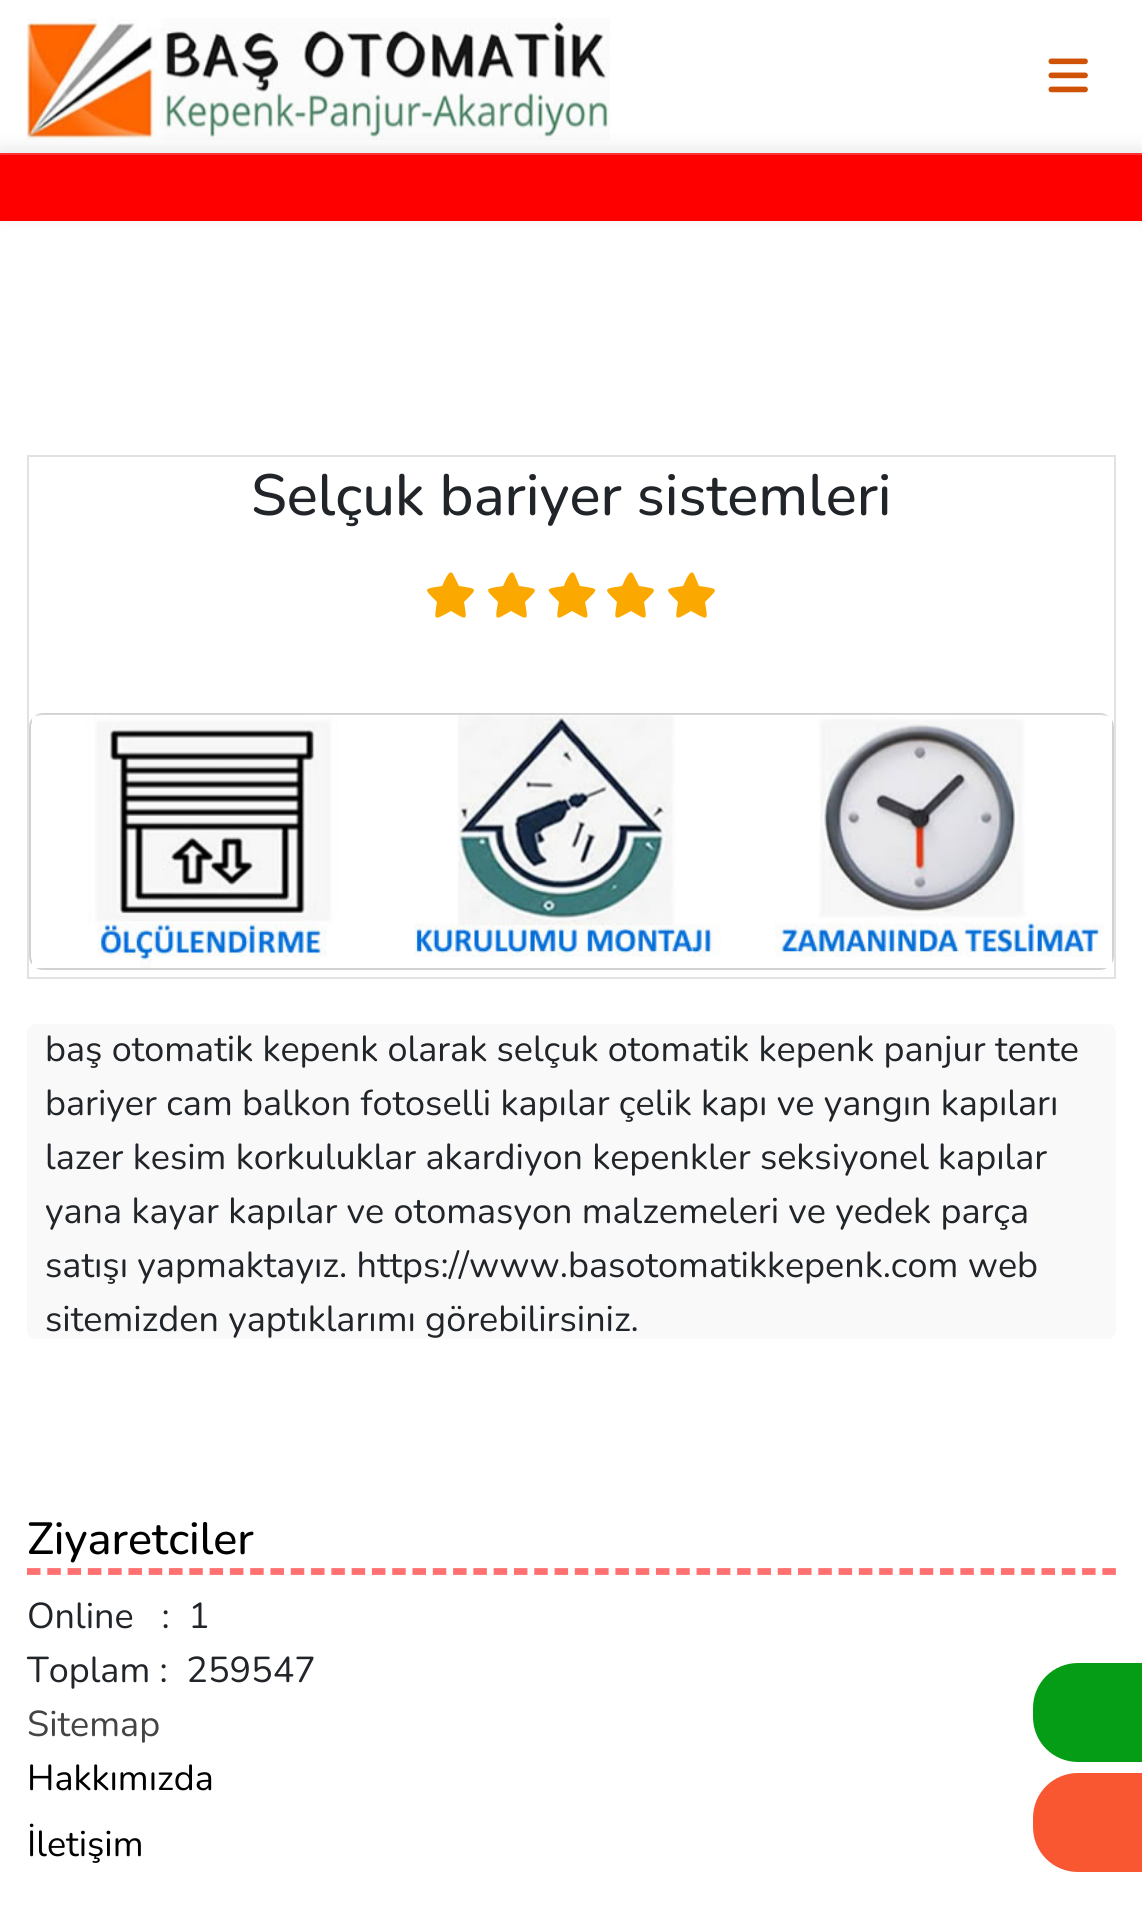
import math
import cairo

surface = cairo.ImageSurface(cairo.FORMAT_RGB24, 1142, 1908)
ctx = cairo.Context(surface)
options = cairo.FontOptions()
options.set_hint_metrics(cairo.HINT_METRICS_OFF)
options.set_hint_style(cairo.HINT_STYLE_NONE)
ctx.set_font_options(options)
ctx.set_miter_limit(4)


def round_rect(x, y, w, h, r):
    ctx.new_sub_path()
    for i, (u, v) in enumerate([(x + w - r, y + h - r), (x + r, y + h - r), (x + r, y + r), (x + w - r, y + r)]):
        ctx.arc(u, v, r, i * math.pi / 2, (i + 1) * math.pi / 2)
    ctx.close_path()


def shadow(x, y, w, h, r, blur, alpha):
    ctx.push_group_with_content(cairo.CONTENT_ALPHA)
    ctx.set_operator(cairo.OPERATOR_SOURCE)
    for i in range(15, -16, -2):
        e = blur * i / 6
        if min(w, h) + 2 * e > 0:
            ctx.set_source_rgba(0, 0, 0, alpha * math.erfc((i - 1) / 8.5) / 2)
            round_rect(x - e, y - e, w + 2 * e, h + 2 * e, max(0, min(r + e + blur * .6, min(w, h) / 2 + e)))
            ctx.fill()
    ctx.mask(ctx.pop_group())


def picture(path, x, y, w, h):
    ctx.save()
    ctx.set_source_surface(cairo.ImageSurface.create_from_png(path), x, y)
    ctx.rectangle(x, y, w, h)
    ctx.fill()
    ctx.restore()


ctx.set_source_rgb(1, 1, 1)
ctx.paint()
picture("img1.png", 27, 18, 583, 122)
picture("img2.png", 1048, 58, 40, 35)
ctx.set_source_rgb(0, 0, 0)
shadow(0, 149, 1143, 67, 0, 9, 0.1)
ctx.set_source_rgb(1, 0, 0)
ctx.rectangle(0, 155, 1142, 66)
ctx.fill()
ctx.set_source_rgb(1, 0.2, 0.2)
ctx.rectangle(0, 153, 1142, 2)
ctx.fill()
ctx.rectangle(28, 456, 1087, 522)
ctx.set_source_rgb(0.886, 0.886, 0.886)
ctx.stroke()
ctx.select_font_face("Nunito Medium")
ctx.set_font_size(58)
ctx.set_source_rgb(0.129, 0.145, 0.161)
ctx.move_to(251, 515)
ctx.show_text("Selçuk bariyer sistemleri")
ctx.set_source_rgb(0.984, 0.663, 0)
ctx.new_path()
ctx.move_to(453, 574)
ctx.curve_to(449, 567, 443, 585, 442, 586)
ctx.curve_to(423, 589, 423, 588, 437, 602)
ctx.curve_to(434, 621, 433, 621, 451, 611)
ctx.curve_to(468, 621, 467, 621, 464, 602)
ctx.curve_to(478, 588, 478, 589, 459, 586)
ctx.close_path()
ctx.fill()
ctx.new_path()
ctx.move_to(514, 574)
ctx.curve_to(510, 567, 504, 585, 503, 586)
ctx.curve_to(484, 589, 484, 588, 498, 602)
ctx.curve_to(495, 621, 494, 621, 511, 611)
ctx.curve_to(529, 621, 528, 621, 525, 602)
ctx.curve_to(539, 588, 539, 589, 519, 586)
ctx.close_path()
ctx.fill()
ctx.new_path()
ctx.move_to(575, 574)
ctx.curve_to(571, 567, 564, 585, 564, 586)
ctx.curve_to(544, 589, 545, 588, 559, 602)
ctx.curve_to(556, 621, 555, 621, 572, 611)
ctx.curve_to(590, 621, 589, 621, 585, 602)
ctx.curve_to(599, 588, 600, 589, 580, 586)
ctx.close_path()
ctx.fill()
ctx.new_path()
ctx.move_to(633, 574)
ctx.curve_to(629, 567, 623, 585, 622, 586)
ctx.curve_to(603, 589, 603, 588, 617, 602)
ctx.curve_to(614, 621, 613, 621, 631, 611)
ctx.curve_to(648, 621, 647, 621, 644, 602)
ctx.curve_to(658, 588, 658, 589, 639, 586)
ctx.close_path()
ctx.fill()
ctx.new_path()
ctx.move_to(694, 574)
ctx.curve_to(690, 567, 684, 585, 683, 586)
ctx.curve_to(664, 589, 664, 588, 678, 602)
ctx.curve_to(675, 621, 674, 621, 691, 611)
ctx.curve_to(709, 621, 708, 621, 705, 602)
ctx.curve_to(719, 588, 719, 589, 699, 586)
ctx.close_path()
ctx.fill()
round_rect(30, 714, 1083, 255, 13)
ctx.set_source_rgb(0.824, 0.824, 0.824)
ctx.stroke()
picture("img3.png", 32, 714, 1080, 254)
ctx.set_source_rgb(0.976, 0.976, 0.976)
round_rect(27, 1024, 1089, 315, 9)
ctx.fill()
ctx.select_font_face("Nunito")
ctx.set_font_size(36)
ctx.set_source_rgb(0.129, 0.145, 0.161)
ctx.move_to(45, 1061)
ctx.show_text("baş otomatik kepenk olarak selçuk otomatik kepenk panjur tente")
ctx.move_to(45, 1115)
ctx.show_text("bariyer cam balkon fotoselli kapılar çelik kapı ve yangın kapıları")
ctx.move_to(45, 1169)
ctx.show_text("lazer kesim korkuluklar akardiyon kepenkler seksiyonel kapılar")
ctx.move_to(45, 1223)
ctx.show_text("yana kayar kapılar ve otomasyon malzemeleri ve yedek parça")
ctx.move_to(45, 1277)
ctx.show_text("satışı yapmaktayız. https://www.basotomatikkepenk.com web")
ctx.move_to(45, 1331)
ctx.show_text("sitemizden yaptıklarımı görebilirsiniz.")
ctx.new_path()
ctx.move_to(27, 1571.5)
ctx.line_to(1116, 1571.5)
ctx.set_source_rgb(1, 0.443, 0.443)
ctx.set_line_width(6.8)
ctx.set_dash([13.5, 6.79])
ctx.stroke()
ctx.select_font_face("Nunito Medium")
ctx.set_font_size(45)
ctx.set_source_rgb(0, 0, 0)
ctx.move_to(27, 1554)
ctx.show_text("Ziyaretciler")
ctx.select_font_face("Nunito")
ctx.set_font_size(36)
ctx.set_source_rgb(0.129, 0.145, 0.161)
ctx.move_to(27, 1628)
ctx.show_text("Online   :  1")
ctx.move_to(27, 1682)
ctx.show_text("Toplam :  259547")
ctx.set_source_rgb(0.267, 0.267, 0.267)
ctx.move_to(27, 1736)
ctx.show_text("Sitemap")
ctx.set_source_rgb(0, 0, 0)
ctx.move_to(27, 1790)
ctx.show_text("Hakkımızda")
ctx.move_to(27, 1856)
ctx.show_text("İletişim")
ctx.set_source_rgb(0.024, 0.616, 0.086)
ctx.new_path()
ctx.move_to(1078, 1663)
ctx.line_to(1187, 1663)
ctx.line_to(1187, 1762)
ctx.line_to(1078, 1762)
ctx.curve_to(1053, 1762, 1033, 1742, 1033, 1717)
ctx.line_to(1033, 1708)
ctx.curve_to(1033, 1683, 1053, 1663, 1078, 1663)
ctx.close_path()
ctx.fill()
ctx.set_source_rgb(0.976, 0.341, 0.196)
ctx.new_path()
ctx.move_to(1078, 1773)
ctx.line_to(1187, 1773)
ctx.line_to(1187, 1872)
ctx.line_to(1078, 1872)
ctx.curve_to(1053, 1872, 1033, 1852, 1033, 1827)
ctx.line_to(1033, 1818)
ctx.curve_to(1033, 1793, 1053, 1773, 1078, 1773)
ctx.close_path()
ctx.fill()
surface.write_to_png("page.png")
